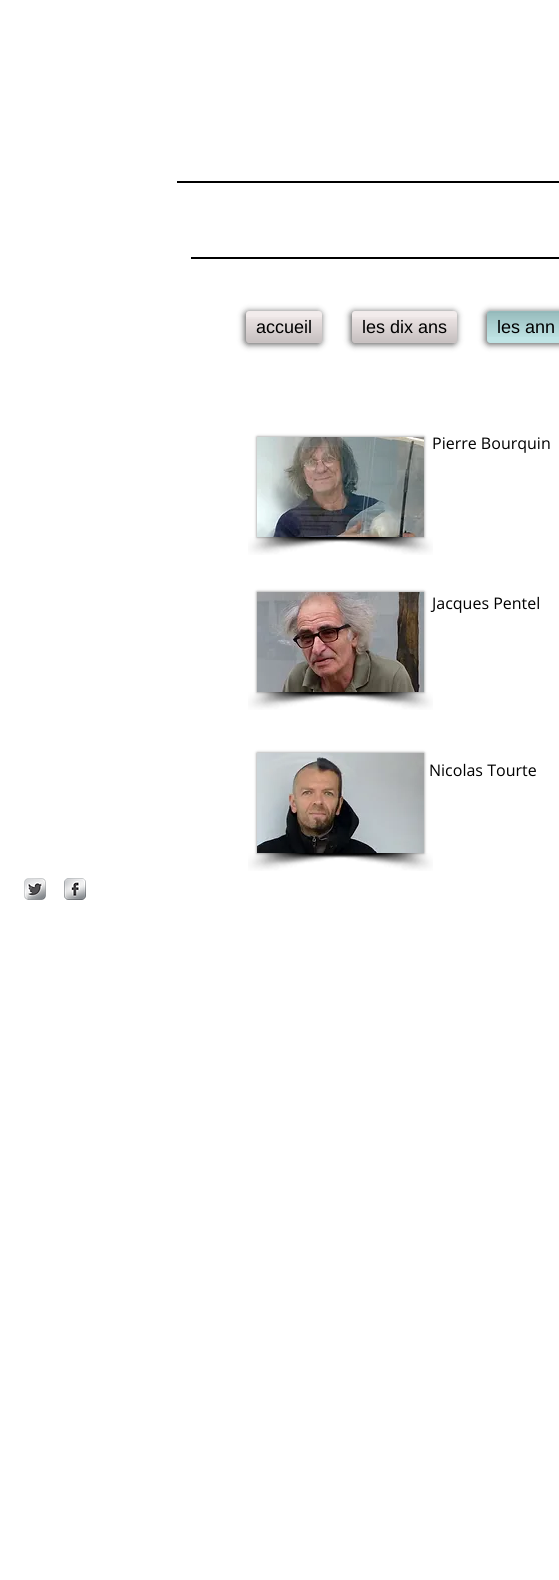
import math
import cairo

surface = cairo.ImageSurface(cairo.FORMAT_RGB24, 559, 1580)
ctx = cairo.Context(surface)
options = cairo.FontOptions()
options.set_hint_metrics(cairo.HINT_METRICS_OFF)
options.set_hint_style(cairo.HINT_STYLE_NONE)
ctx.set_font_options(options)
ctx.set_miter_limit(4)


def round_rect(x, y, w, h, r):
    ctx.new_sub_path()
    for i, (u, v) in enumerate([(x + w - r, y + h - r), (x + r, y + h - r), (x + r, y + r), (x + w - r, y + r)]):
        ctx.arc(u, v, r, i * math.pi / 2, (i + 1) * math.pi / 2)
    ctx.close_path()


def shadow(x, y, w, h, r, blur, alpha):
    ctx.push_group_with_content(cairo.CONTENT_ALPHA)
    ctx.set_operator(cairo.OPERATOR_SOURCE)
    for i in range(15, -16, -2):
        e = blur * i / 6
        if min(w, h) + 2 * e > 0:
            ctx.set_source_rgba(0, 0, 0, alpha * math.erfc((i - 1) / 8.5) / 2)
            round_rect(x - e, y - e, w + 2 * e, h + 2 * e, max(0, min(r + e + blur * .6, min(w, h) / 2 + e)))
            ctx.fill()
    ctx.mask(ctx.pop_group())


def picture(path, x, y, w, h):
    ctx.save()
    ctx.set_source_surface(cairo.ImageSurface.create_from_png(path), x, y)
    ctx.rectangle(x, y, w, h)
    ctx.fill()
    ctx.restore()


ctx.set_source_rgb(1, 1, 1)
ctx.paint()
ctx.set_source_rgb(0, 0, 0)
ctx.rectangle(177, 181, 382, 2)
ctx.fill()
ctx.rectangle(191, 257, 368, 2)
ctx.fill()
ctx.set_source_rgb(0, 0, 0)
shadow(245, 312, 76, 32, 3, 3.5, 0.7)
ctx.set_source_rgb(0.937, 0.906, 0.906)
round_rect(246, 311, 76, 32, 3)
ctx.fill()
picture("img1.png", 246, 311, 76, 8)
picture("img2.png", 246, 317, 76, 26)
ctx.select_font_face("Liberation Sans")
ctx.set_font_size(18)
ctx.set_source_rgb(0, 0, 0)
ctx.move_to(256, 333)
ctx.show_text("accueil")
ctx.set_source_rgb(0, 0, 0)
shadow(351, 312, 105, 32, 3, 3.5, 0.7)
ctx.set_source_rgb(0.937, 0.906, 0.906)
round_rect(352, 311, 105, 32, 3)
ctx.fill()
picture("img3.png", 352, 311, 105, 8)
picture("img4.png", 352, 317, 105, 26)
ctx.set_source_rgb(0, 0, 0)
ctx.move_to(362, 333)
ctx.show_text("les dix ans")
ctx.set_source_rgb(0, 0, 0)
shadow(486, 312, 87, 32, 3, 3.5, 0.7)
ctx.set_source_rgb(0.694, 0.871, 0.875)
round_rect(487, 311, 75, 32, 3)
ctx.fill()
picture("img5.png", 487, 311, 72, 26)
picture("img6.png", 487, 313, 72, 30)
ctx.set_source_rgb(0, 0, 0)
ctx.move_to(497, 333)
ctx.show_text("les ann")
ctx.set_source_rgb(0, 0, 0)
shadow(257, 437, 167, 100, 0, 1.5, 0.5)
picture("img7.png", 257, 437, 167, 100)
picture("img8.png", 248, 537, 154, 18)
picture("img9.png", 309, 537, 124, 18)
ctx.select_font_face("Open Sans")
ctx.set_font_size(16)
ctx.set_source_rgb(0, 0, 0)
ctx.move_to(432, 449)
ctx.show_text("Pierre Bourquin")
ctx.set_source_rgb(0, 0, 0)
shadow(257, 592, 167, 100, 0, 1.5, 0.5)
picture("img10.png", 257, 592, 167, 100)
picture("img8.png", 248, 692, 154, 18)
picture("img9.png", 309, 692, 124, 18)
ctx.set_source_rgb(0, 0, 0)
ctx.move_to(432, 609)
ctx.show_text("Jacques Pentel")
ctx.set_source_rgb(0, 0, 0)
shadow(257, 753, 167, 100, 0, 1.5, 0.5)
picture("img11.png", 257, 753, 167, 100)
picture("img8.png", 248, 853, 154, 18)
picture("img9.png", 309, 853, 124, 18)
ctx.set_source_rgb(0, 0, 0)
ctx.move_to(429, 776)
ctx.show_text("Nicolas Tourte")
picture("img12.png", 24, 878, 22, 22)
picture("img13.png", 64, 878, 22, 22)
surface.write_to_png("page.png")
